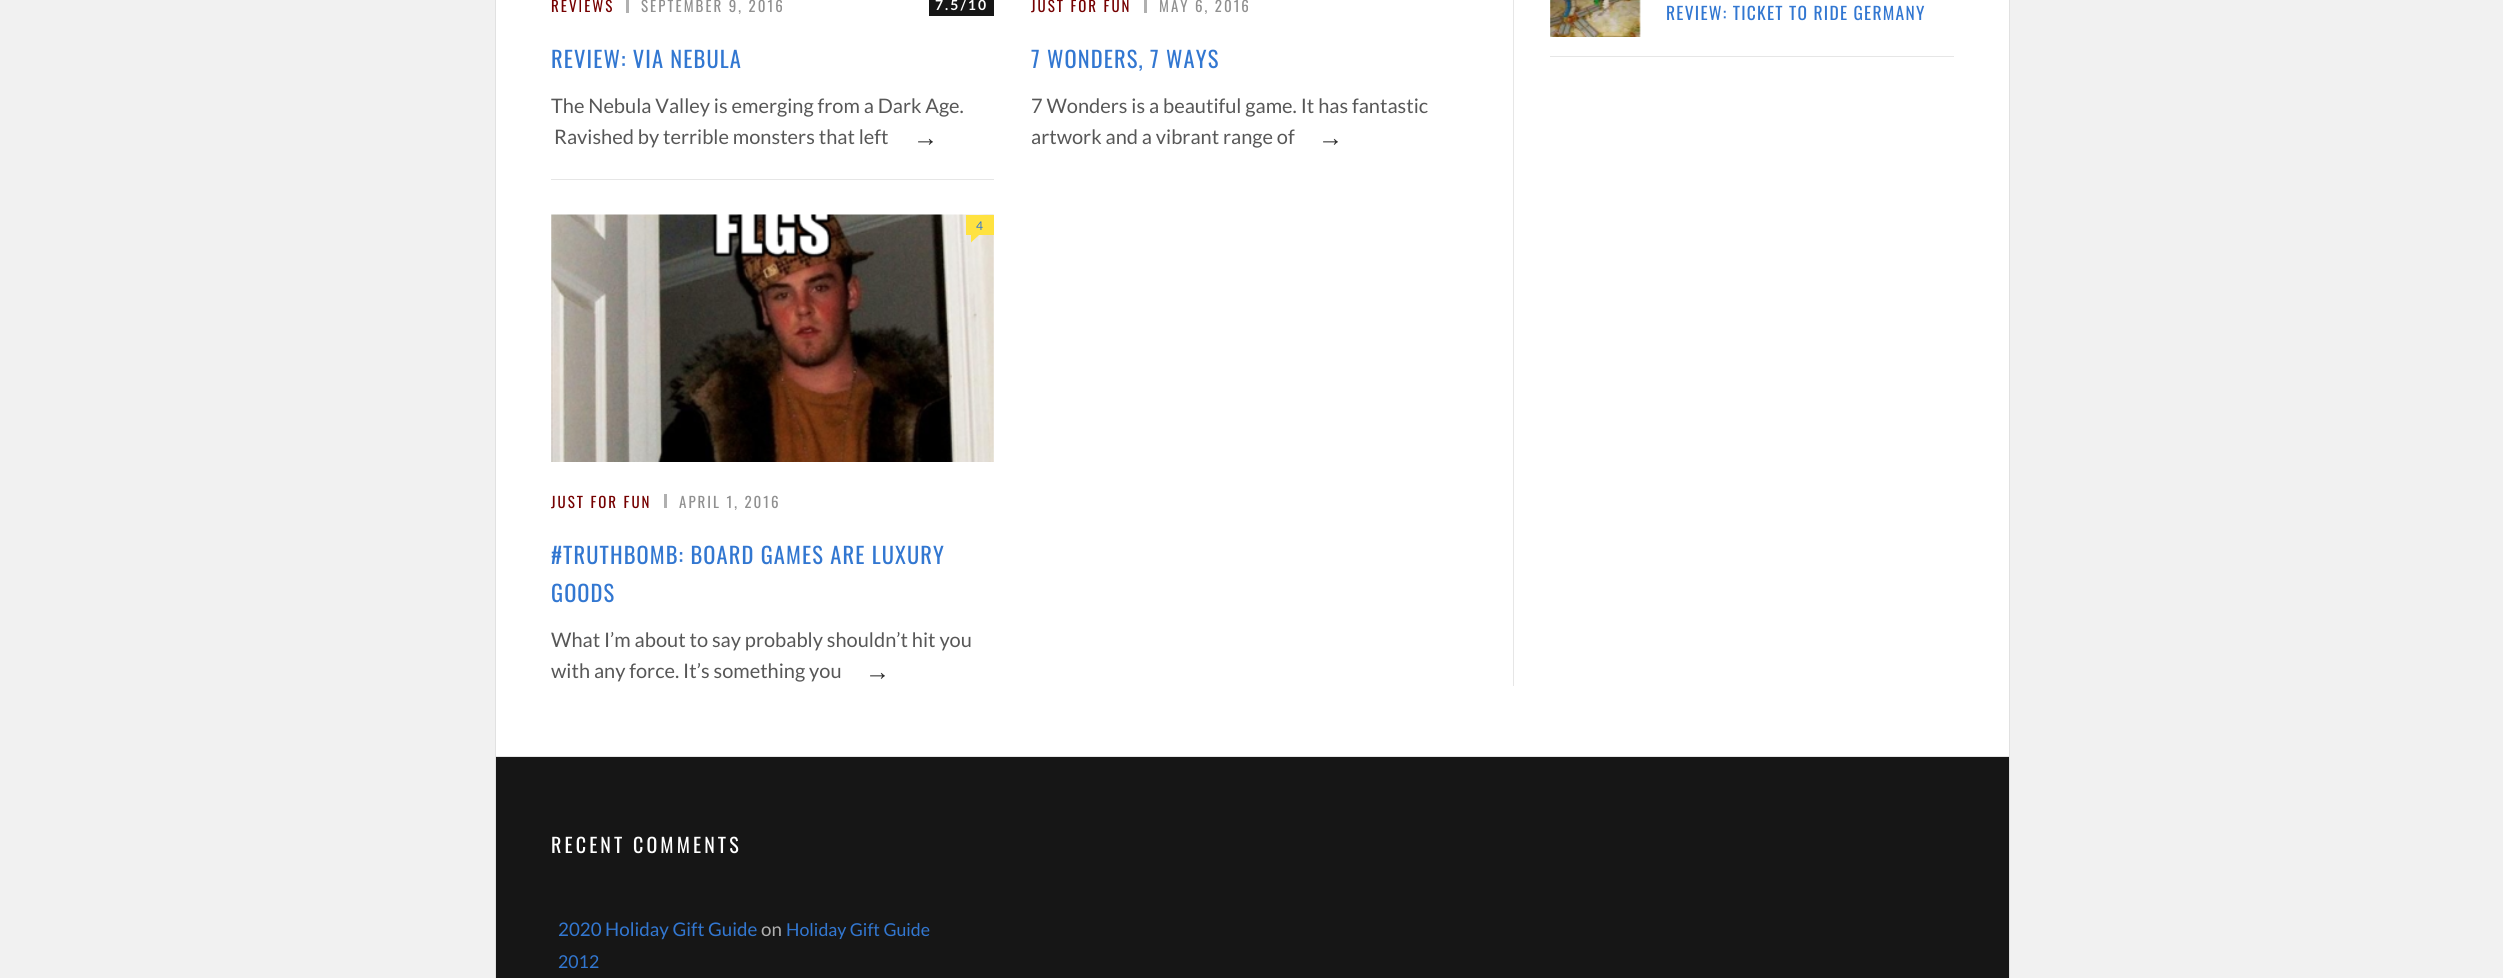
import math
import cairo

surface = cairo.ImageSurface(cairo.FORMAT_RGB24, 2503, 978)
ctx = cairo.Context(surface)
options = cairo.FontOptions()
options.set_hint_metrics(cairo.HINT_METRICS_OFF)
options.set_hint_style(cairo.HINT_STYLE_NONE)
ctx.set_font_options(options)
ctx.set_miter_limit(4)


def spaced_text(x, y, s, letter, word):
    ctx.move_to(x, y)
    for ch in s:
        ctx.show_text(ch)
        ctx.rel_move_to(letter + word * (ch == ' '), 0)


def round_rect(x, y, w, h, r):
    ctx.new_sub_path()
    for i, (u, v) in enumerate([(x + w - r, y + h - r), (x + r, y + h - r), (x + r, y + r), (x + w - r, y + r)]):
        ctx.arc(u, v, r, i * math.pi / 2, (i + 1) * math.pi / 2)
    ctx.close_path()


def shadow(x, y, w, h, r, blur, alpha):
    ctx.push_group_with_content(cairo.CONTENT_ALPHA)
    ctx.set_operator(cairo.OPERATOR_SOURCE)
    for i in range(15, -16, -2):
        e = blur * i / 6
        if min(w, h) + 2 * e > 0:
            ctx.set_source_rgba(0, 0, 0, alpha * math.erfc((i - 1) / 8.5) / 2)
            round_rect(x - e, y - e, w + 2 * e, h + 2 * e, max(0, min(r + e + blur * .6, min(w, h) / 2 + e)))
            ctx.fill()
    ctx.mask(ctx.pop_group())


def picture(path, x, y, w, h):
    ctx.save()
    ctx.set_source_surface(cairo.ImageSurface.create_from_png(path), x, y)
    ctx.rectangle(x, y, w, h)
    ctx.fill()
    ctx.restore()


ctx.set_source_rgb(0.945, 0.945, 0.945)
ctx.paint()
ctx.set_source_rgb(0, 0, 0)
shadow(496, -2, 1513, 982, 0, 0.5, 0.25)
ctx.set_source_rgb(1, 1, 1)
ctx.rectangle(496, 0, 1513, 756)
ctx.fill()
ctx.select_font_face("Oswald")
ctx.set_font_size(15)
ctx.set_source_rgb(0.459, 0, 0)
spaced_text(551, 12, "REVIEWS", 2, 0)
ctx.set_source_rgb(0.69, 0.69, 0.69)
ctx.rectangle(626, 0, 3, 13)
ctx.fill()
ctx.set_source_rgb(0.565, 0.565, 0.565)
spaced_text(641, 12, "SEPTEMBER 9, 2016", 2, 0)
ctx.set_source_rgb(0.086, 0.086, 0.086)
ctx.rectangle(929, 0, 65, 16)
ctx.fill()
ctx.select_font_face("Lato", cairo.FONT_SLANT_NORMAL, cairo.FONT_WEIGHT_BOLD)
ctx.set_font_size(14)
ctx.set_source_rgb(1, 1, 1)
spaced_text(935, 10, "7.5/10", 2, 0)
ctx.select_font_face("Oswald")
ctx.set_font_size(22.5)
ctx.set_source_rgb(0.196, 0.467, 0.82)
spaced_text(551, 68, "REVIEW: VIA NEBULA", 1.1, 0)
ctx.select_font_face("Lato")
ctx.set_font_size(20)
ctx.set_source_rgb(0.341, 0.341, 0.341)
ctx.move_to(551, 113)
ctx.show_text("The Nebula Valley is emerging from a Dark Age.")
ctx.move_to(554, 144)
ctx.show_text("Ravished by terrible monsters that left")
ctx.select_font_face("Liberation Sans")
ctx.set_font_size(25)
ctx.set_source_rgb(0.18, 0.18, 0.18)
ctx.move_to(913, 146)
ctx.show_text("→")
ctx.select_font_face("Oswald")
ctx.set_font_size(15)
ctx.set_source_rgb(0.459, 0, 0)
spaced_text(1031, 12, "JUST FOR FUN", 2, 0)
ctx.set_source_rgb(0.69, 0.69, 0.69)
ctx.rectangle(1144, 0, 3, 13)
ctx.fill()
ctx.set_source_rgb(0.565, 0.565, 0.565)
spaced_text(1159, 12, "MAY 6, 2016", 2, 0)
ctx.set_font_size(22.5)
ctx.set_source_rgb(0.196, 0.467, 0.82)
spaced_text(1031, 68, "7 WONDERS, 7 WAYS", 1.1, 0)
ctx.select_font_face("Lato")
ctx.set_font_size(20)
ctx.set_source_rgb(0.341, 0.341, 0.341)
ctx.move_to(1031, 113)
ctx.show_text("7 Wonders is a beautiful game. It has fantastic")
ctx.move_to(1031, 144)
ctx.show_text("artwork and a vibrant range of")
ctx.select_font_face("Liberation Sans")
ctx.set_font_size(25)
ctx.set_source_rgb(0.18, 0.18, 0.18)
ctx.move_to(1318, 146)
ctx.show_text("→")
ctx.set_source_rgb(0.902, 0.902, 0.902)
ctx.rectangle(551, 179, 443, 1)
ctx.fill()
picture("img1.png", 551, 214, 443, 248)
ctx.set_source_rgb(1, 0.886, 0.251)
ctx.rectangle(966, 215, 28, 20)
ctx.fill()
ctx.select_font_face("Lato")
ctx.set_font_size(12)
ctx.set_source_rgb(0.196, 0.467, 0.82)
ctx.move_to(976, 230)
ctx.show_text("4")
ctx.set_source_rgb(1, 0.886, 0.251)
ctx.new_path()
ctx.move_to(971, 242.5)
ctx.line_to(971, 235)
ctx.line_to(979, 235)
ctx.close_path()
ctx.fill()
ctx.select_font_face("Oswald")
ctx.set_font_size(15)
ctx.set_source_rgb(0.459, 0, 0)
spaced_text(551, 508, "JUST FOR FUN", 2, 0)
ctx.set_source_rgb(0.69, 0.69, 0.69)
ctx.rectangle(664, 494, 3, 14)
ctx.fill()
ctx.set_source_rgb(0.565, 0.565, 0.565)
spaced_text(679, 508, "APRIL 1, 2016", 2, 0)
ctx.set_font_size(22.5)
ctx.set_source_rgb(0.196, 0.467, 0.82)
spaced_text(551, 564, "#TRUTHBOMB: BOARD GAMES ARE LUXURY", 1.1, 0)
spaced_text(551, 602, "GOODS", 1.1, 0)
ctx.select_font_face("Lato")
ctx.set_font_size(20)
ctx.set_source_rgb(0.341, 0.341, 0.341)
ctx.move_to(551, 647)
ctx.show_text("What I’m about to say probably shouldn’t hit you")
ctx.move_to(551, 678)
ctx.show_text("with any force. It’s something you")
ctx.select_font_face("Liberation Sans")
ctx.set_font_size(25)
ctx.set_source_rgb(0.18, 0.18, 0.18)
ctx.move_to(865, 680)
ctx.show_text("→")
ctx.set_source_rgb(0.902, 0.902, 0.902)
ctx.rectangle(1513, 0, 1, 686)
ctx.fill()
ctx.rectangle(1550, 56, 404, 1)
ctx.fill()
picture("img2.png", 1550, 0, 91, 37)
ctx.select_font_face("Oswald")
ctx.set_font_size(17.5)
ctx.set_source_rgb(0.196, 0.467, 0.82)
spaced_text(1666, 20, "REVIEW: TICKET TO RIDE GERMANY", 1.25, 0)
ctx.set_source_rgb(0.086, 0.086, 0.086)
ctx.rectangle(496, 757, 1513, 221)
ctx.fill()
ctx.set_source_rgb(0.902, 0.902, 0.902)
ctx.rectangle(496, 756, 1513, 1)
ctx.fill()
ctx.set_font_size(20)
ctx.set_source_rgb(1, 1, 1)
spaced_text(551, 853, "RECENT COMMENTS", 3.1, 0)
ctx.select_font_face("Lato")
ctx.set_font_size(18.75)
ctx.set_source_rgb(0.196, 0.467, 0.82)
ctx.move_to(558, 936)
ctx.show_text("2020 Holiday Gift Guide")
ctx.set_source_rgb(0.69, 0.69, 0.69)
ctx.move_to(761, 936)
ctx.show_text("on")
ctx.set_font_size(17.75)
ctx.set_source_rgb(0.196, 0.467, 0.82)
ctx.move_to(786, 936)
ctx.show_text("Holiday Gift Guide")
ctx.move_to(558, 968)
ctx.show_text("2012")
surface.write_to_png("page.png")
